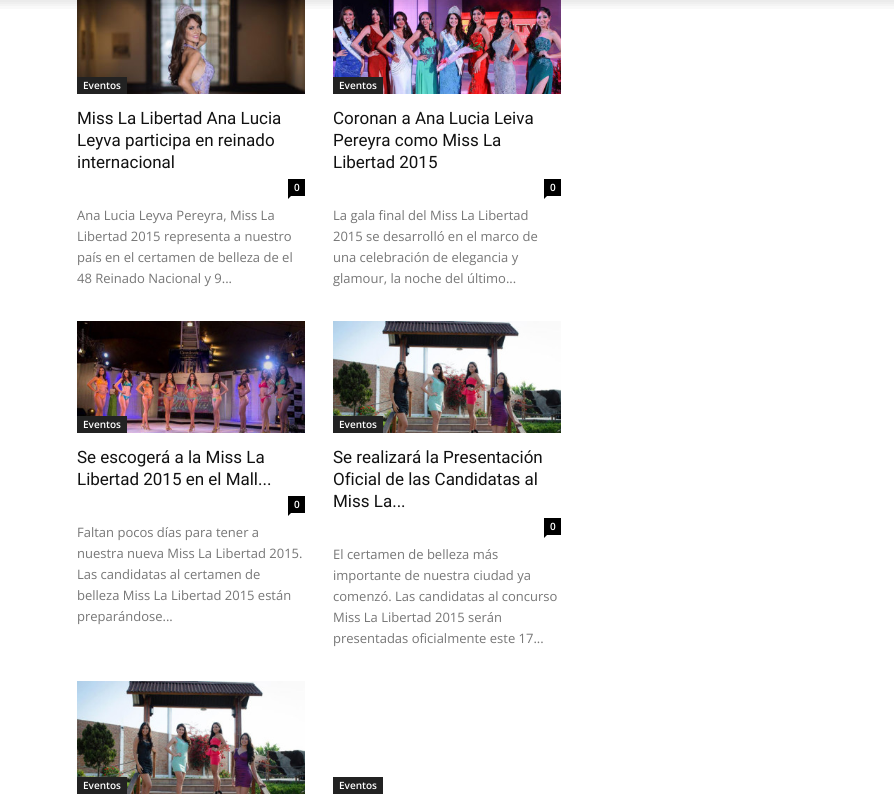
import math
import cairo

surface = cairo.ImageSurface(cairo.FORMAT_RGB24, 894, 796)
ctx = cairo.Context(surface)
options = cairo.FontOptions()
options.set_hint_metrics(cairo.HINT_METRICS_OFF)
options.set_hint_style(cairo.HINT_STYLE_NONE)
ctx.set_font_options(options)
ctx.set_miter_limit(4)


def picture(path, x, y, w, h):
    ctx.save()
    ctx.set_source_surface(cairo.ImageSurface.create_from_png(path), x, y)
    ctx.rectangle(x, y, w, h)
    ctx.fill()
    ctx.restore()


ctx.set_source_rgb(1, 1, 1)
ctx.paint()
picture("img2.png", 77, 0, 228, 94)
picture("img3.png", 333, 0, 228, 94)
picture("img1.png", 0, 0, 894, 9)
ctx.set_source_rgb(0.133, 0.133, 0.133)
ctx.rectangle(77, 77, 50, 17)
ctx.fill()
ctx.select_font_face("Open Sans SemiBold")
ctx.set_font_size(10)
ctx.set_source_rgb(1, 1, 1)
ctx.move_to(83, 89)
ctx.show_text("Eventos")
ctx.select_font_face("Roboto")
ctx.set_font_size(17)
ctx.set_source_rgb(0.067, 0.067, 0.067)
ctx.move_to(77, 124)
ctx.show_text("Miss La Libertad Ana Lucia")
ctx.move_to(77, 146)
ctx.show_text("Leyva participa en reinado")
ctx.move_to(77, 168)
ctx.show_text("internacional")
ctx.set_source_rgb(0, 0, 0)
ctx.rectangle(288, 179, 17, 17)
ctx.fill()
ctx.select_font_face("Open Sans SemiBold")
ctx.set_font_size(10)
ctx.set_source_rgb(1, 1, 1)
ctx.move_to(294, 191)
ctx.show_text("0")
ctx.set_source_rgb(0, 0, 0)
ctx.new_path()
ctx.move_to(288, 196)
ctx.line_to(291, 196)
ctx.line_to(288, 199)
ctx.close_path()
ctx.fill()
ctx.select_font_face("Open Sans")
ctx.set_font_size(13)
ctx.set_source_rgb(0.463, 0.463, 0.463)
ctx.move_to(77, 220)
ctx.show_text("Ana Lucia Leyva Pereyra, Miss La")
ctx.move_to(77, 241)
ctx.show_text("Libertad 2015 representa a nuestro")
ctx.move_to(77, 262)
ctx.show_text("país en el certamen de belleza de el")
ctx.move_to(77, 283)
ctx.show_text("48 Reinado Nacional y 9...")
ctx.set_source_rgb(0.133, 0.133, 0.133)
ctx.rectangle(333, 77, 50, 17)
ctx.fill()
ctx.select_font_face("Open Sans SemiBold")
ctx.set_font_size(10)
ctx.set_source_rgb(1, 1, 1)
ctx.move_to(339, 89)
ctx.show_text("Eventos")
ctx.select_font_face("Roboto")
ctx.set_font_size(17)
ctx.set_source_rgb(0.067, 0.067, 0.067)
ctx.move_to(333, 124)
ctx.show_text("Coronan a Ana Lucia Leiva")
ctx.move_to(333, 146)
ctx.show_text("Pereyra como Miss La")
ctx.move_to(333, 168)
ctx.show_text("Libertad 2015")
ctx.set_source_rgb(0, 0, 0)
ctx.rectangle(544, 179, 17, 17)
ctx.fill()
ctx.select_font_face("Open Sans SemiBold")
ctx.set_font_size(10)
ctx.set_source_rgb(1, 1, 1)
ctx.move_to(550, 191)
ctx.show_text("0")
ctx.set_source_rgb(0, 0, 0)
ctx.new_path()
ctx.move_to(544, 196)
ctx.line_to(547, 196)
ctx.line_to(544, 199)
ctx.close_path()
ctx.fill()
ctx.select_font_face("Open Sans")
ctx.set_font_size(13)
ctx.set_source_rgb(0.463, 0.463, 0.463)
ctx.move_to(333, 220)
ctx.show_text("La gala final del Miss La Libertad")
ctx.move_to(333, 241)
ctx.show_text("2015 se desarrolló en el marco de")
ctx.move_to(333, 262)
ctx.show_text("una celebración de elegancia y")
ctx.move_to(333, 283)
ctx.show_text("glamour, la noche del último...")
picture("img4.png", 77, 321, 228, 112)
ctx.set_source_rgb(0.133, 0.133, 0.133)
ctx.rectangle(77, 416, 50, 17)
ctx.fill()
ctx.select_font_face("Open Sans SemiBold")
ctx.set_font_size(10)
ctx.set_source_rgb(1, 1, 1)
ctx.move_to(83, 428)
ctx.show_text("Eventos")
ctx.select_font_face("Roboto")
ctx.set_font_size(17)
ctx.set_source_rgb(0.067, 0.067, 0.067)
ctx.move_to(77, 463)
ctx.show_text("Se escogerá a la Miss La")
ctx.move_to(77, 485)
ctx.show_text("Libertad 2015 en el Mall...")
ctx.set_source_rgb(0, 0, 0)
ctx.rectangle(288, 496, 17, 17)
ctx.fill()
ctx.select_font_face("Open Sans SemiBold")
ctx.set_font_size(10)
ctx.set_source_rgb(1, 1, 1)
ctx.move_to(294, 508)
ctx.show_text("0")
ctx.set_source_rgb(0, 0, 0)
ctx.new_path()
ctx.move_to(288, 513)
ctx.line_to(291, 513)
ctx.line_to(288, 516)
ctx.close_path()
ctx.fill()
ctx.select_font_face("Open Sans")
ctx.set_font_size(13)
ctx.set_source_rgb(0.463, 0.463, 0.463)
ctx.move_to(77, 537)
ctx.show_text("Faltan pocos días para tener a")
ctx.move_to(77, 558)
ctx.show_text("nuestra nueva Miss La Libertad 2015.")
ctx.move_to(77, 579)
ctx.show_text("Las candidatas al certamen de")
ctx.move_to(77, 600)
ctx.show_text("belleza Miss La Libertad 2015 están")
ctx.move_to(77, 621)
ctx.show_text("preparándose...")
picture("img5.png", 333, 321, 228, 112)
ctx.set_source_rgb(0.133, 0.133, 0.133)
ctx.rectangle(333, 416, 50, 17)
ctx.fill()
ctx.select_font_face("Open Sans SemiBold")
ctx.set_font_size(10)
ctx.set_source_rgb(1, 1, 1)
ctx.move_to(339, 428)
ctx.show_text("Eventos")
ctx.select_font_face("Roboto")
ctx.set_font_size(17)
ctx.set_source_rgb(0.067, 0.067, 0.067)
ctx.move_to(333, 463)
ctx.show_text("Se realizará la Presentación")
ctx.move_to(333, 485)
ctx.show_text("Oficial de las Candidatas al")
ctx.move_to(333, 507)
ctx.show_text("Miss La...")
ctx.set_source_rgb(0, 0, 0)
ctx.rectangle(544, 518, 17, 17)
ctx.fill()
ctx.select_font_face("Open Sans SemiBold")
ctx.set_font_size(10)
ctx.set_source_rgb(1, 1, 1)
ctx.move_to(550, 530)
ctx.show_text("0")
ctx.set_source_rgb(0, 0, 0)
ctx.new_path()
ctx.move_to(544, 535)
ctx.line_to(547, 535)
ctx.line_to(544, 538)
ctx.close_path()
ctx.fill()
ctx.select_font_face("Open Sans")
ctx.set_font_size(13)
ctx.set_source_rgb(0.463, 0.463, 0.463)
ctx.move_to(333, 559)
ctx.show_text("El certamen de belleza más")
ctx.move_to(333, 580)
ctx.show_text("importante de nuestra ciudad ya")
ctx.move_to(333, 601)
ctx.show_text("comenzó. Las candidatas al concurso")
ctx.move_to(333, 622)
ctx.show_text("Miss La Libertad 2015 serán")
ctx.move_to(333, 643)
ctx.show_text("presentadas oficialmente este 17...")
picture("img6.png", 77, 681, 228, 113)
ctx.set_source_rgb(0.133, 0.133, 0.133)
ctx.rectangle(77, 777, 50, 17)
ctx.fill()
ctx.select_font_face("Open Sans SemiBold")
ctx.set_font_size(10)
ctx.set_source_rgb(1, 1, 1)
ctx.move_to(83, 789)
ctx.show_text("Eventos")
ctx.set_source_rgb(0.133, 0.133, 0.133)
ctx.rectangle(333, 777, 50, 17)
ctx.fill()
ctx.set_source_rgb(1, 1, 1)
ctx.move_to(339, 789)
ctx.show_text("Eventos")
surface.write_to_png("page.png")
